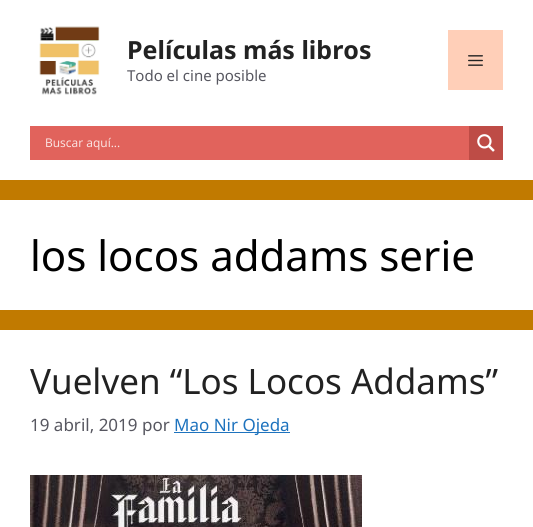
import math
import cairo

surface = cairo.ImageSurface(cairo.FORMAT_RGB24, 533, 527)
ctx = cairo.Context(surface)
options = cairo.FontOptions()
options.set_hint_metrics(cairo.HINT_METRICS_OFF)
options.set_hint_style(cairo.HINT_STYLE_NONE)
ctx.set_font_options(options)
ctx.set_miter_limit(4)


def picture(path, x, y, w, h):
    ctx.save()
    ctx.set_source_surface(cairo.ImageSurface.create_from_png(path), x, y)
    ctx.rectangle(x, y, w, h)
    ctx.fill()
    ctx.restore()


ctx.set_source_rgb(0.757, 0.478, 0)
ctx.paint()
ctx.set_source_rgb(1, 1, 1)
ctx.rectangle(0, 0, 533, 180)
ctx.fill()
picture("img1.png", 39, 26, 61, 69)
ctx.select_font_face("Noto Sans", cairo.FONT_SLANT_NORMAL, cairo.FONT_WEIGHT_BOLD)
ctx.set_font_size(25)
ctx.set_source_rgb(0.133, 0.133, 0.133)
ctx.move_to(127, 59)
ctx.show_text("Películas más libros")
ctx.select_font_face("Noto Sans")
ctx.set_font_size(15)
ctx.set_source_rgb(0.341, 0.341, 0.376)
ctx.move_to(127, 81)
ctx.show_text("Todo el cine posible")
ctx.set_source_rgb(1, 0.812, 0.722)
ctx.rectangle(448, 30, 55, 60)
ctx.fill()
picture("img2.png", 468, 55, 15, 11)
ctx.set_source_rgb(0.882, 0.388, 0.361)
ctx.rectangle(30, 126, 439, 34)
ctx.fill()
ctx.select_font_face("Open Sans")
ctx.set_font_size(12)
ctx.set_source_rgb(0.984, 0.91, 0.906)
ctx.move_to(45, 147)
ctx.show_text("Buscar aquí...")
ctx.set_source_rgb(0.745, 0.298, 0.275)
ctx.rectangle(469, 126, 34, 34)
ctx.fill()
picture("img3.png", 477, 134, 18, 18)
ctx.set_source_rgb(1, 1, 1)
ctx.rectangle(0, 200, 533, 110)
ctx.fill()
ctx.select_font_face("Noto Sans")
ctx.set_font_size(42)
ctx.set_source_rgb(0, 0, 0)
ctx.move_to(30, 271)
ctx.show_text("los locos addams serie")
ctx.set_source_rgb(1, 1, 1)
ctx.rectangle(0, 330, 533, 197)
ctx.fill()
ctx.set_font_size(35)
ctx.set_source_rgb(0.133, 0.133, 0.133)
ctx.move_to(30, 394)
ctx.show_text("Vuelven “Los Locos Addams”")
ctx.set_font_size(17)
ctx.set_source_rgb(0.341, 0.341, 0.376)
ctx.move_to(30, 431)
ctx.show_text("19 abril, 2019 por")
ctx.set_source_rgb(0.118, 0.451, 0.745)
ctx.rectangle(174, 432, 116, 1)
ctx.fill()
ctx.move_to(174, 431)
ctx.show_text("Mao Nir Ojeda")
picture("img4.png", 30, 475, 332, 52)
surface.write_to_png("page.png")
